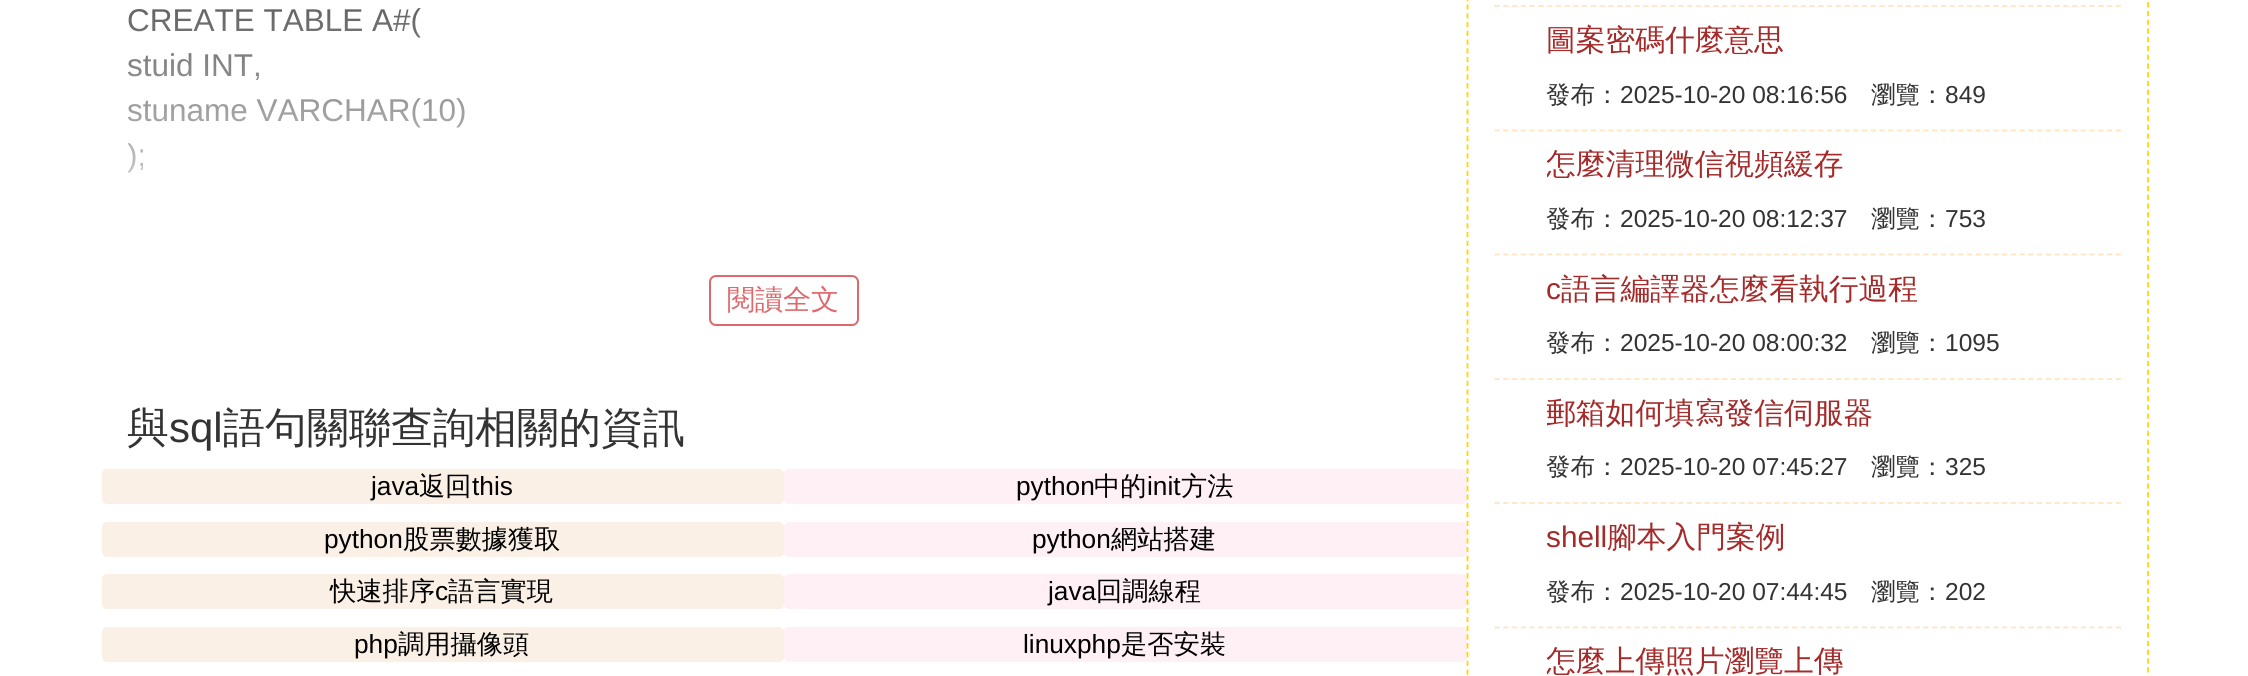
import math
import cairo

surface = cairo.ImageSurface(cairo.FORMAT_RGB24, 2248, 676)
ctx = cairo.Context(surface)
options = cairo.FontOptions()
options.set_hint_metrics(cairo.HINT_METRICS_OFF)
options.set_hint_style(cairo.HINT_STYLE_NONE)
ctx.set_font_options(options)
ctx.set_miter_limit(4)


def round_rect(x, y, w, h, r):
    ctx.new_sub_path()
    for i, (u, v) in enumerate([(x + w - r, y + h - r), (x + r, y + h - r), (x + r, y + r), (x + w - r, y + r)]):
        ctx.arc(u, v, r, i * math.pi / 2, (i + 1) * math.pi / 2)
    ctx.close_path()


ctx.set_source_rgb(1, 1, 1)
ctx.paint()
ctx.select_font_face("Liberation Sans")
ctx.set_font_size(31.5)
ctx.set_source_rgb(0.2, 0.2, 0.2)
ctx.move_to(127, 31)
ctx.show_text("CREATE TABLE A#(")
ctx.move_to(127, 76)
ctx.show_text("stuid INT,")
ctx.move_to(127, 121)
ctx.show_text("stuname VARCHAR(10)")
ctx.save()
ctx.rectangle(128, 0, 1312, 275)
ctx.clip()
ctx.move_to(127, 166)
ctx.show_text(");")
ctx.restore()
gradient = cairo.LinearGradient(128, -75, 128, 275)
gradient.add_color_stop_rgba(0, 1, 1, 1, 0)
gradient.add_color_stop_rgba(1, 1, 1, 1, 1)
ctx.set_source(gradient)
ctx.rectangle(128, 8, 337, 165)
ctx.fill()
round_rect(710, 276, 148, 49, 6)
ctx.set_source_rgb(0.871, 0.408, 0.427)
ctx.stroke()
ctx.select_font_face("WenQuanYi Zen Hei Medium")
ctx.set_font_size(28)
ctx.move_to(727, 309)
ctx.show_text("閱讀全文")
ctx.set_font_size(42)
ctx.set_source_rgb(0.2, 0.2, 0.2)
ctx.move_to(127, 442)
ctx.show_text("與")
ctx.select_font_face("Liberation Sans")
ctx.move_to(169, 442)
ctx.show_text("sql")
ctx.select_font_face("WenQuanYi Zen Hei Medium")
ctx.move_to(223, 442)
ctx.show_text("語句關聯查詢相關的資訊")
ctx.set_source_rgb(0.98, 0.941, 0.902)
round_rect(102, 469, 682, 35, 5)
ctx.fill()
ctx.select_font_face("Liberation Sans")
ctx.set_font_size(26.25)
ctx.set_source_rgb(0, 0, 0)
ctx.move_to(371, 495)
ctx.show_text("java")
ctx.select_font_face("WenQuanYi Zen Hei Medium")
ctx.move_to(419, 495)
ctx.show_text("返回")
ctx.select_font_face("Liberation Sans")
ctx.move_to(472, 495)
ctx.show_text("this")
ctx.set_source_rgb(1, 0.941, 0.961)
round_rect(784, 469, 683, 35, 5)
ctx.fill()
ctx.set_source_rgb(0, 0, 0)
ctx.move_to(1016, 495)
ctx.show_text("python")
ctx.select_font_face("WenQuanYi Zen Hei Medium")
ctx.move_to(1094, 495)
ctx.show_text("中的")
ctx.select_font_face("Liberation Sans")
ctx.move_to(1147, 495)
ctx.show_text("init")
ctx.select_font_face("WenQuanYi Zen Hei Medium")
ctx.move_to(1181, 495)
ctx.show_text("方法")
ctx.set_source_rgb(0.98, 0.941, 0.902)
round_rect(102, 522, 682, 35, 5)
ctx.fill()
ctx.select_font_face("Liberation Sans")
ctx.set_source_rgb(0, 0, 0)
ctx.move_to(324, 548)
ctx.show_text("python")
ctx.select_font_face("WenQuanYi Zen Hei Medium")
ctx.move_to(403, 548)
ctx.show_text("股票數據獲取")
ctx.set_source_rgb(1, 0.941, 0.961)
round_rect(784, 522, 683, 35, 5)
ctx.fill()
ctx.select_font_face("Liberation Sans")
ctx.set_source_rgb(0, 0, 0)
ctx.move_to(1032, 548)
ctx.show_text("python")
ctx.select_font_face("WenQuanYi Zen Hei Medium")
ctx.move_to(1111, 548)
ctx.show_text("網站搭建")
ctx.set_source_rgb(0.98, 0.941, 0.902)
round_rect(102, 574, 682, 35, 5)
ctx.fill()
ctx.set_source_rgb(0, 0, 0)
ctx.move_to(330, 600)
ctx.show_text("快速排序")
ctx.select_font_face("Liberation Sans")
ctx.move_to(435, 600)
ctx.show_text("c")
ctx.select_font_face("WenQuanYi Zen Hei Medium")
ctx.move_to(448, 600)
ctx.show_text("語言實現")
ctx.set_source_rgb(1, 0.941, 0.961)
round_rect(784, 574, 683, 35, 5)
ctx.fill()
ctx.select_font_face("Liberation Sans")
ctx.set_source_rgb(0, 0, 0)
ctx.move_to(1048, 600)
ctx.show_text("java")
ctx.select_font_face("WenQuanYi Zen Hei Medium")
ctx.move_to(1096, 600)
ctx.show_text("回調線程")
ctx.set_source_rgb(0.98, 0.941, 0.902)
round_rect(102, 627, 682, 35, 5)
ctx.fill()
ctx.select_font_face("Liberation Sans")
ctx.set_source_rgb(0, 0, 0)
ctx.move_to(354, 653)
ctx.show_text("php")
ctx.select_font_face("WenQuanYi Zen Hei Medium")
ctx.move_to(398, 653)
ctx.show_text("調用攝像頭")
ctx.set_source_rgb(1, 0.941, 0.961)
round_rect(784, 627, 683, 35, 5)
ctx.fill()
ctx.select_font_face("Liberation Sans")
ctx.set_source_rgb(0, 0, 0)
ctx.move_to(1023, 653)
ctx.show_text("linuxphp")
ctx.select_font_face("WenQuanYi Zen Hei Medium")
ctx.move_to(1121, 653)
ctx.show_text("是否安裝")
ctx.new_path()
ctx.move_to(1484, -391)
ctx.line_to(2131.5, -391)
ctx.curve_to(2140.5, -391, 2148, -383.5, 2148, -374.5)
ctx.line_to(2148, 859)
ctx.curve_to(2148, 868.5, 2140.5, 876, 2131.5, 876)
ctx.line_to(1484, 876)
ctx.curve_to(1475, 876, 1467.5, 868.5, 1467.5, 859)
ctx.line_to(1467.5, -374.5)
ctx.curve_to(1467.5, -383.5, 1475, -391, 1484, -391)
ctx.close_path()
ctx.set_source_rgb(1, 0.843, 0)
ctx.set_line_width(1.8)
ctx.set_dash([5.25, 3.5])
ctx.stroke()
ctx.new_path()
ctx.move_to(1494.5, 6)
ctx.line_to(2121, 6)
ctx.set_source_rgb(1, 0.894, 0.769)
ctx.stroke()
ctx.new_path()
ctx.move_to(1494.5, 130.5)
ctx.line_to(2121, 130.5)
ctx.stroke()
ctx.set_font_size(29.75)
ctx.set_source_rgb(0.647, 0.165, 0.165)
ctx.move_to(1546, 50)
ctx.show_text("圖案密碼什麼意思")
ctx.set_font_size(24.5)
ctx.set_source_rgb(0.2, 0.2, 0.2)
ctx.move_to(1546, 103)
ctx.show_text("發布：")
ctx.select_font_face("Liberation Sans")
ctx.move_to(1620, 103)
ctx.show_text("2025-10-20 08:16:56")
ctx.select_font_face("WenQuanYi Zen Hei Medium")
ctx.move_to(1871, 103)
ctx.show_text("瀏覽：")
ctx.select_font_face("Liberation Sans")
ctx.move_to(1945, 103)
ctx.show_text("849")
ctx.new_path()
ctx.move_to(1494.5, 254.5)
ctx.line_to(2121, 254.5)
ctx.set_source_rgb(1, 0.894, 0.769)
ctx.stroke()
ctx.save()
ctx.rectangle(1547, 149, 557, 35)
ctx.clip()
ctx.select_font_face("WenQuanYi Zen Hei Medium")
ctx.set_font_size(29.75)
ctx.set_source_rgb(0.647, 0.165, 0.165)
ctx.move_to(1546, 174)
ctx.show_text("怎麼清理微信視頻緩存")
ctx.restore()
ctx.select_font_face("WenQuanYi Zen Hei Medium")
ctx.set_source_rgb(0.2, 0.2, 0.2)
ctx.move_to(1546, 227)
ctx.show_text("發布：")
ctx.select_font_face("Liberation Sans")
ctx.move_to(1620, 227)
ctx.show_text("2025-10-20 08:12:37")
ctx.select_font_face("WenQuanYi Zen Hei Medium")
ctx.move_to(1871, 227)
ctx.show_text("瀏覽：")
ctx.select_font_face("Liberation Sans")
ctx.move_to(1945, 227)
ctx.show_text("753")
ctx.new_path()
ctx.move_to(1494.5, 379)
ctx.line_to(2121, 379)
ctx.set_source_rgb(1, 0.894, 0.769)
ctx.stroke()
ctx.set_font_size(29.75)
ctx.set_source_rgb(0.647, 0.165, 0.165)
ctx.move_to(1546, 299)
ctx.show_text("c")
ctx.select_font_face("WenQuanYi Zen Hei Medium")
ctx.move_to(1561, 299)
ctx.show_text("語言編譯器怎麼看執行過程")
ctx.set_font_size(24.5)
ctx.set_source_rgb(0.2, 0.2, 0.2)
ctx.move_to(1546, 351)
ctx.show_text("發布：")
ctx.select_font_face("Liberation Sans")
ctx.move_to(1620, 351)
ctx.show_text("2025-10-20 08:00:32")
ctx.select_font_face("WenQuanYi Zen Hei Medium")
ctx.move_to(1871, 351)
ctx.show_text("瀏覽：")
ctx.select_font_face("Liberation Sans")
ctx.move_to(1945, 351)
ctx.show_text("1095")
ctx.new_path()
ctx.move_to(1494.5, 503)
ctx.line_to(2121, 503)
ctx.set_source_rgb(1, 0.894, 0.769)
ctx.stroke()
ctx.save()
ctx.rectangle(1547, 397, 557, 35)
ctx.clip()
ctx.select_font_face("WenQuanYi Zen Hei Medium")
ctx.set_font_size(29.75)
ctx.set_source_rgb(0.647, 0.165, 0.165)
ctx.move_to(1546, 423)
ctx.show_text("郵箱如何填寫發信伺服器")
ctx.restore()
ctx.select_font_face("WenQuanYi Zen Hei Medium")
ctx.set_source_rgb(0.2, 0.2, 0.2)
ctx.move_to(1546, 475)
ctx.show_text("發布：")
ctx.select_font_face("Liberation Sans")
ctx.move_to(1620, 475)
ctx.show_text("2025-10-20 07:45:27")
ctx.select_font_face("WenQuanYi Zen Hei Medium")
ctx.move_to(1871, 475)
ctx.show_text("瀏覽：")
ctx.select_font_face("Liberation Sans")
ctx.move_to(1945, 475)
ctx.show_text("325")
ctx.new_path()
ctx.move_to(1494.5, 627.5)
ctx.line_to(2121, 627.5)
ctx.set_source_rgb(1, 0.894, 0.769)
ctx.stroke()
ctx.set_font_size(29.75)
ctx.set_source_rgb(0.647, 0.165, 0.165)
ctx.move_to(1546, 547)
ctx.show_text("shell")
ctx.select_font_face("WenQuanYi Zen Hei Medium")
ctx.move_to(1607, 547)
ctx.show_text("腳本入門案例")
ctx.set_font_size(24.5)
ctx.set_source_rgb(0.2, 0.2, 0.2)
ctx.move_to(1546, 600)
ctx.show_text("發布：")
ctx.select_font_face("Liberation Sans")
ctx.move_to(1620, 600)
ctx.show_text("2025-10-20 07:44:45")
ctx.select_font_face("WenQuanYi Zen Hei Medium")
ctx.move_to(1871, 600)
ctx.show_text("瀏覽：")
ctx.select_font_face("Liberation Sans")
ctx.move_to(1945, 600)
ctx.show_text("202")
ctx.save()
ctx.rectangle(1547, 646, 557, 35)
ctx.clip()
ctx.select_font_face("WenQuanYi Zen Hei Medium")
ctx.set_font_size(29.75)
ctx.set_source_rgb(0.647, 0.165, 0.165)
ctx.move_to(1546, 671)
ctx.show_text("怎麼上傳照片瀏覽上傳")
ctx.restore()
surface.write_to_png("page.png")
